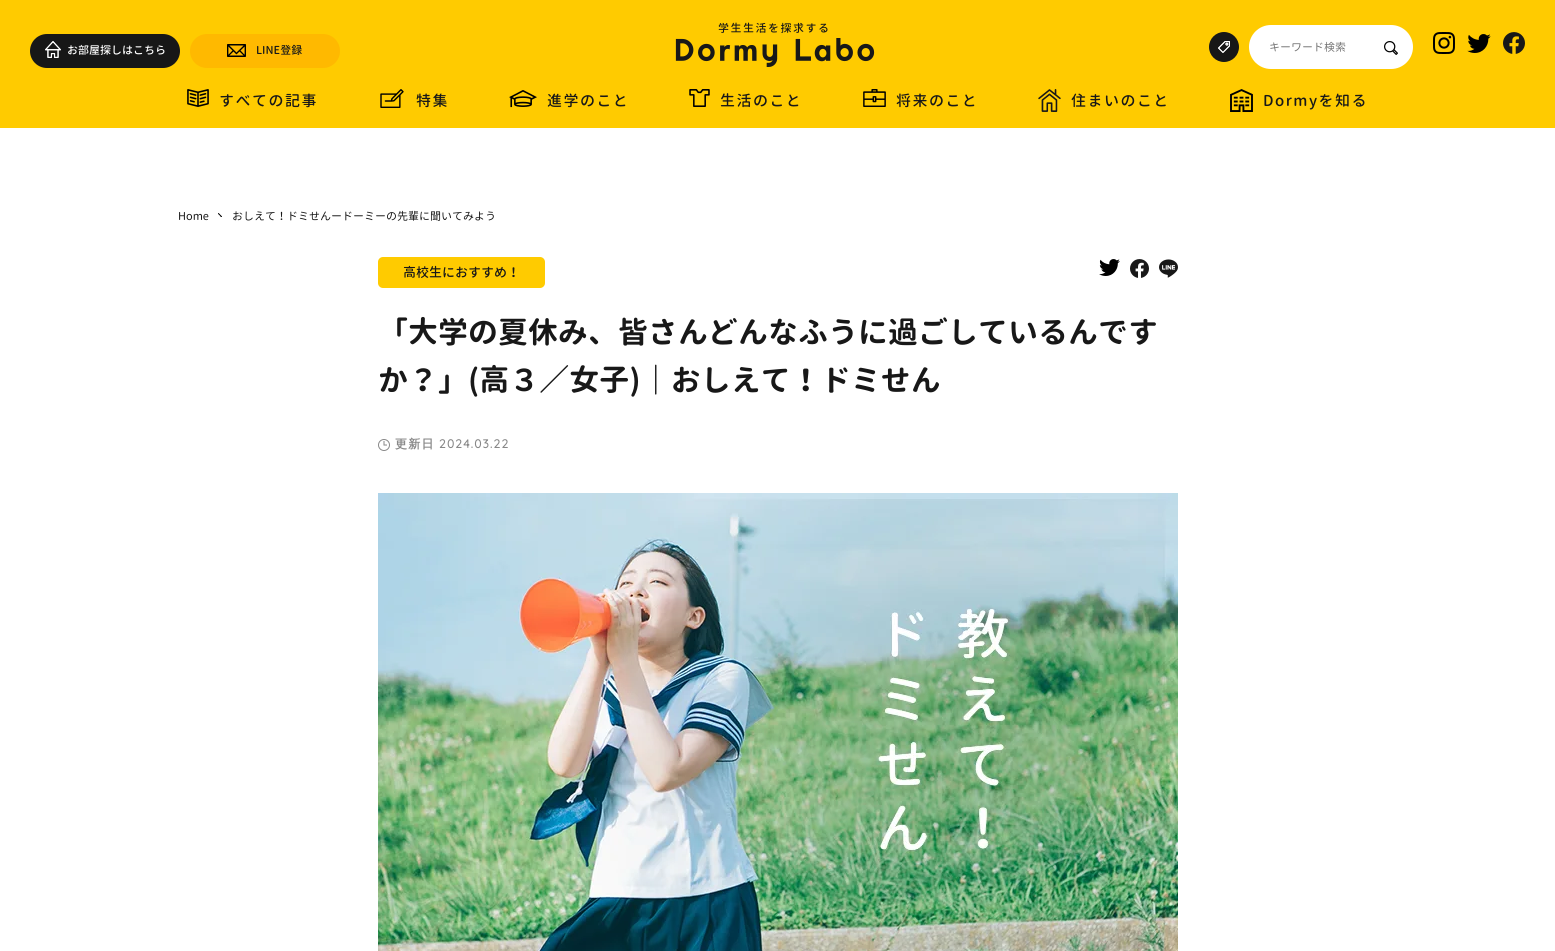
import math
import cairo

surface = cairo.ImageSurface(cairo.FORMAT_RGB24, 1555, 951)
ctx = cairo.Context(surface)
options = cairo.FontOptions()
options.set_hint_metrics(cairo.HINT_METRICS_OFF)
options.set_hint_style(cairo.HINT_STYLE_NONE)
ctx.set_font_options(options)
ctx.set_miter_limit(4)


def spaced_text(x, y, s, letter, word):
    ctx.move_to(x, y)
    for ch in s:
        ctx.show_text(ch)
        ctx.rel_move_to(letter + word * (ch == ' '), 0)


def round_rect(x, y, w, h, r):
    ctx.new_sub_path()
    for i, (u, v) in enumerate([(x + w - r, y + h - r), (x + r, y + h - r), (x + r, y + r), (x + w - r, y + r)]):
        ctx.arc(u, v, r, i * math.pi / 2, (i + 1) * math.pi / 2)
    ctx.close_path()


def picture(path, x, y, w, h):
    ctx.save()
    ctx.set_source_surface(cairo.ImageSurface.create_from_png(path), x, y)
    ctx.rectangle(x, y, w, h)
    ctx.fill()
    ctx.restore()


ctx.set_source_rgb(1, 1, 1)
ctx.paint()
ctx.set_source_rgb(1, 0.796, 0)
ctx.rectangle(0, 0, 1555, 128)
ctx.fill()
ctx.select_font_face("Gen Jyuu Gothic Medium")
ctx.set_font_size(11)
ctx.set_source_rgb(0.094, 0.094, 0.094)
spaced_text(718, 32, "学生生活を探求する", 1.5, 0)
picture("img1.png", 675, 38, 200, 29)
ctx.set_source_rgb(0.09, 0.09, 0.09)
round_rect(30, 34, 150, 34, 17)
ctx.fill()
picture("img2.png", 45, 41, 16, 17)
ctx.set_source_rgb(1, 1, 1)
ctx.move_to(67, 54)
ctx.show_text("お部屋探しはこちら")
ctx.set_source_rgb(1, 0.725, 0)
round_rect(190, 34, 150, 34, 17)
ctx.fill()
picture("img3.png", 227, 44, 19, 13)
ctx.set_source_rgb(0.094, 0.094, 0.094)
ctx.move_to(256, 54)
ctx.show_text("LINE登録")
ctx.set_source_rgb(0.09, 0.09, 0.09)
ctx.new_path()
ctx.arc(1224, 47, 15, 0, 2 * math.pi)
ctx.fill()
picture("img4.png", 1218, 41, 12, 12)
ctx.set_source_rgb(1, 1, 1)
round_rect(1249, 25, 164, 44, 22)
ctx.fill()
ctx.select_font_face("Gen Jyuu Gothic")
ctx.set_source_rgb(0.459, 0.459, 0.459)
ctx.move_to(1269, 51)
ctx.show_text("キーワード検索")
picture("img5.png", 1384, 41, 14, 14)
picture("img6.png", 1433, 32, 22, 22)
picture("img7.png", 1467, 34, 24, 19)
picture("img8.png", 1503, 32, 22, 22)
picture("img9.png", 187, 89, 22, 18)
ctx.select_font_face("Gen Jyuu Gothic Medium")
ctx.set_font_size(15)
ctx.set_source_rgb(0.094, 0.094, 0.094)
spaced_text(219, 106, "すべての記事", 1.5, 0)
picture("img10.png", 380, 89, 24, 19)
spaced_text(416, 106, "特集", 1.5, 0)
picture("img11.png", 509, 90, 28, 18)
spaced_text(547, 106, "進学のこと", 1.5, 0)
picture("img12.png", 689, 89, 21, 18)
spaced_text(720, 106, "生活のこと", 1.5, 0)
picture("img13.png", 863, 89, 23, 18)
spaced_text(896, 106, "将来のこと", 1.5, 0)
picture("img14.png", 1038, 89, 23, 23)
spaced_text(1071, 106, "住まいのこと", 1.5, 0)
picture("img15.png", 1230, 89, 23, 23)
spaced_text(1263, 106, "Dormyを知る", 1.5, 0)
ctx.select_font_face("Gen Jyuu Gothic")
ctx.set_font_size(11)
ctx.move_to(178, 220)
ctx.show_text("Home")
picture("img16.png", 218, 213, 4, 4)
ctx.move_to(232, 220)
ctx.show_text("おしえて！ドミせんードーミーの先輩に聞いてみよう")
ctx.set_source_rgb(1, 0.796, 0)
round_rect(378, 257, 167, 31, 5)
ctx.fill()
ctx.select_font_face("Gen Jyuu Gothic Medium")
ctx.set_font_size(13)
ctx.set_source_rgb(0.094, 0.094, 0.094)
ctx.move_to(403, 277)
ctx.show_text("高校生におすすめ！")
picture("img17.png", 1099, 259, 21, 17)
picture("img18.png", 1130, 259, 19, 19)
picture("img19.png", 1159, 259, 19, 19)
ctx.select_font_face("Gen Jyuu Gothic", cairo.FONT_SLANT_NORMAL, cairo.FONT_WEIGHT_BOLD)
ctx.set_font_size(30)
ctx.move_to(378, 343)
ctx.show_text("「大学の夏休み、皆さんどんなふうに過ごしているんです")
ctx.move_to(378, 391)
ctx.show_text("か？」(高３／女子)｜おしえて！ドミせん")
picture("img20.png", 378, 439, 12, 12)
ctx.select_font_face("WenQuanYi Zen Hei", cairo.FONT_SLANT_NORMAL, cairo.FONT_WEIGHT_BOLD)
ctx.set_font_size(12)
ctx.set_source_rgb(0.533, 0.533, 0.533)
spaced_text(395, 448, "更新日", 1.25, 0)
ctx.select_font_face("Quicksand", cairo.FONT_SLANT_NORMAL, cairo.FONT_WEIGHT_BOLD)
spaced_text(439, 448, "2024.03.22", 1.25, 0)
picture("img21.png", 378, 493, 800, 458)
surface.write_to_png("page.png")
